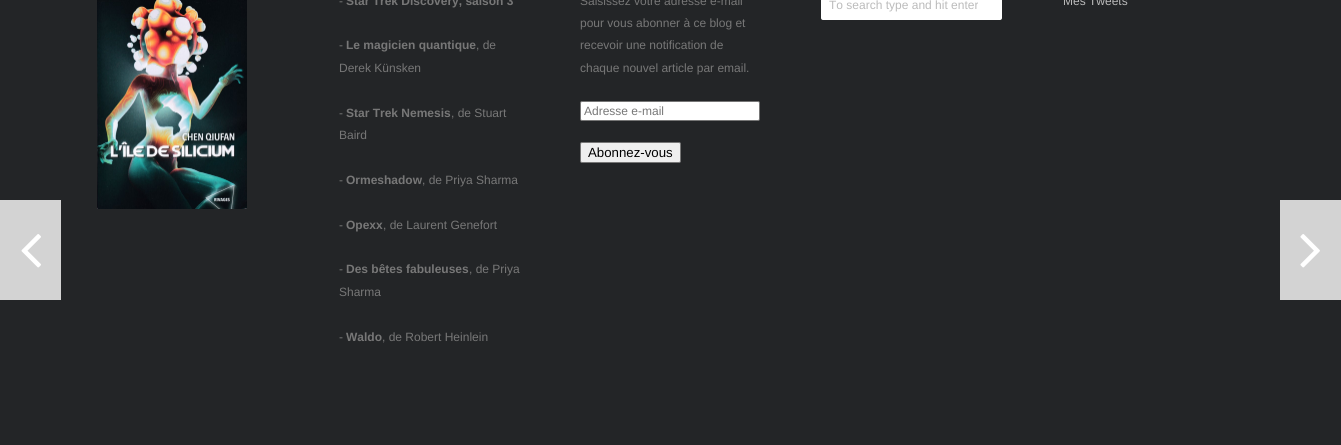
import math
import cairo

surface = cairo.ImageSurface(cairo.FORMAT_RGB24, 1341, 445)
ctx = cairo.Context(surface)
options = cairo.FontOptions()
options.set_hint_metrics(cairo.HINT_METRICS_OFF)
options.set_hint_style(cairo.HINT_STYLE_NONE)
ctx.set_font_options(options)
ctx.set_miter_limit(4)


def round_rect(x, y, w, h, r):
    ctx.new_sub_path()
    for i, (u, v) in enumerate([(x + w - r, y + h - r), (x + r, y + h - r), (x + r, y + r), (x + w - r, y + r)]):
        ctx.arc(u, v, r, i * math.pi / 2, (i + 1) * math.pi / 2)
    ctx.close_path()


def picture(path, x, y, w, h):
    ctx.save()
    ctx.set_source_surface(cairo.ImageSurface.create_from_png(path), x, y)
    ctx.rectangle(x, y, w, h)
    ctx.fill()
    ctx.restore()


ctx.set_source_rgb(0.137, 0.145, 0.153)
ctx.paint()
picture("img1.png", 97, 0, 150, 209)
ctx.select_font_face("Liberation Sans")
ctx.set_font_size(12)
ctx.set_source_rgb(0.467, 0.467, 0.467)
ctx.move_to(339, 5)
ctx.show_text("-")
ctx.select_font_face("Liberation Sans", cairo.FONT_SLANT_NORMAL, cairo.FONT_WEIGHT_BOLD)
ctx.move_to(346, 5)
ctx.show_text("Star Trek Discovery, saison 3")
ctx.select_font_face("Liberation Sans")
ctx.move_to(339, 49)
ctx.show_text("-")
ctx.select_font_face("Liberation Sans", cairo.FONT_SLANT_NORMAL, cairo.FONT_WEIGHT_BOLD)
ctx.move_to(346, 49)
ctx.show_text("Le magicien quantique")
ctx.select_font_face("Liberation Sans")
ctx.move_to(476, 49)
ctx.show_text(", de")
ctx.move_to(339, 72)
ctx.show_text("Derek Künsken")
ctx.move_to(339, 117)
ctx.show_text("-")
ctx.select_font_face("Liberation Sans", cairo.FONT_SLANT_NORMAL, cairo.FONT_WEIGHT_BOLD)
ctx.move_to(346, 117)
ctx.show_text("Star Trek Nemesis")
ctx.select_font_face("Liberation Sans")
ctx.move_to(451, 117)
ctx.show_text(", de Stuart")
ctx.move_to(339, 139)
ctx.show_text("Baird")
ctx.move_to(339, 184)
ctx.show_text("-")
ctx.select_font_face("Liberation Sans", cairo.FONT_SLANT_NORMAL, cairo.FONT_WEIGHT_BOLD)
ctx.move_to(346, 184)
ctx.show_text("Ormeshadow")
ctx.select_font_face("Liberation Sans")
ctx.move_to(422, 184)
ctx.show_text(", de Priya Sharma")
ctx.move_to(339, 229)
ctx.show_text("-")
ctx.select_font_face("Liberation Sans", cairo.FONT_SLANT_NORMAL, cairo.FONT_WEIGHT_BOLD)
ctx.move_to(346, 229)
ctx.show_text("Opexx")
ctx.select_font_face("Liberation Sans")
ctx.move_to(383, 229)
ctx.show_text(", de Laurent Genefort")
ctx.move_to(339, 273)
ctx.show_text("-")
ctx.select_font_face("Liberation Sans", cairo.FONT_SLANT_NORMAL, cairo.FONT_WEIGHT_BOLD)
ctx.move_to(346, 273)
ctx.show_text("Des bêtes fabuleuses")
ctx.select_font_face("Liberation Sans")
ctx.move_to(469, 273)
ctx.show_text(", de Priya")
ctx.move_to(339, 296)
ctx.show_text("Sharma")
ctx.move_to(339, 341)
ctx.show_text("-")
ctx.select_font_face("Liberation Sans", cairo.FONT_SLANT_NORMAL, cairo.FONT_WEIGHT_BOLD)
ctx.move_to(346, 341)
ctx.show_text("Waldo")
ctx.select_font_face("Liberation Sans")
ctx.move_to(382, 341)
ctx.show_text(", de Robert Heinlein")
ctx.move_to(580, 5)
ctx.show_text("Saisissez votre adresse e-mail")
ctx.move_to(580, 27)
ctx.show_text("pour vous abonner à ce blog et")
ctx.move_to(580, 49)
ctx.show_text("recevoir une notification de")
ctx.move_to(580, 72)
ctx.show_text("chaque nouvel article par email.")
ctx.set_source_rgb(1, 1, 1)
round_rect(580.5, 101.5, 179, 19, 1.5)
ctx.fill_preserve()
ctx.set_source_rgb(0.463, 0.463, 0.463)
ctx.set_line_width(1)
ctx.stroke()
ctx.set_source_rgb(0.467, 0.467, 0.467)
ctx.move_to(584, 115)
ctx.show_text("Adresse e-mail")
ctx.set_source_rgb(0.937, 0.937, 0.937)
round_rect(580.5, 142.5, 100, 20, 1.5)
ctx.fill_preserve()
ctx.set_source_rgb(0.463, 0.463, 0.463)
ctx.stroke()
ctx.set_font_size(13.25)
ctx.set_source_rgb(0, 0, 0)
ctx.move_to(588, 157)
ctx.show_text("Abonnez-vous")
ctx.set_source_rgb(1, 1, 1)
round_rect(821, -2, 181, 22, 2)
ctx.fill()
ctx.set_font_size(12)
ctx.set_source_rgb(0.733, 0.733, 0.733)
ctx.move_to(829, 9)
ctx.show_text("To search type and hit enter")
ctx.move_to(1063, 5)
ctx.show_text("Mes Tweets")
ctx.set_source_rgb(0.827, 0.827, 0.827)
ctx.rectangle(0, 200, 61, 100)
ctx.fill()
picture("img2.png", 21, 234, 20, 34)
ctx.rectangle(1280, 200, 61, 100)
ctx.fill()
picture("img3.png", 1300, 234, 20, 34)
surface.write_to_png("page.png")
